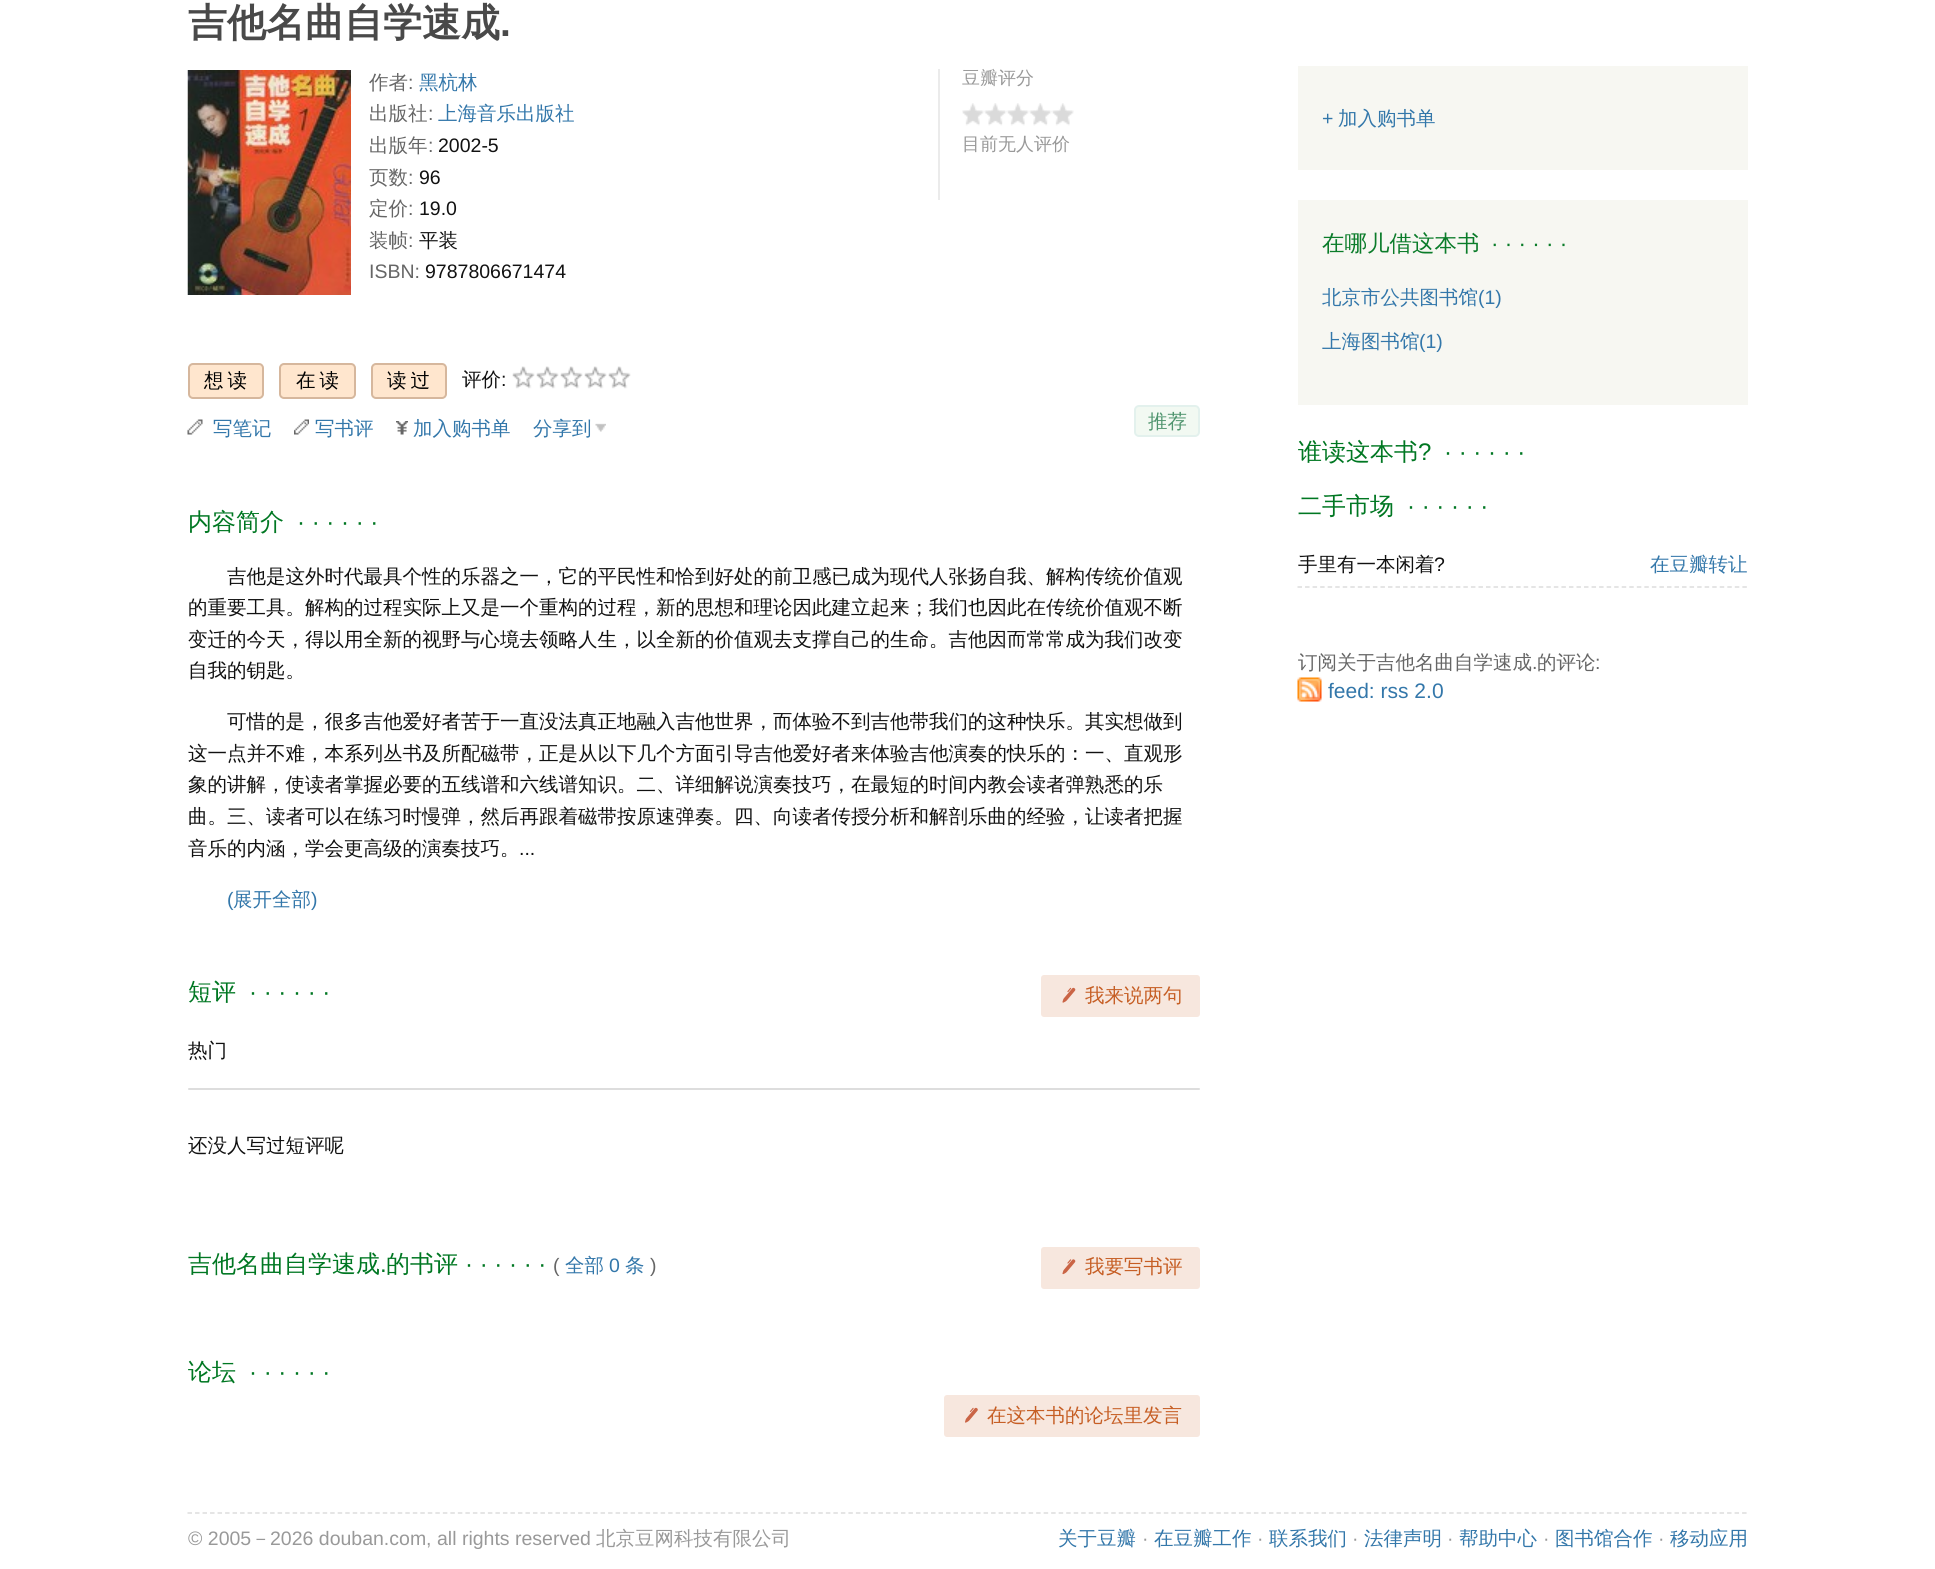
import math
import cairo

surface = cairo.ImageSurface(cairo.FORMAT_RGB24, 1935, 1569)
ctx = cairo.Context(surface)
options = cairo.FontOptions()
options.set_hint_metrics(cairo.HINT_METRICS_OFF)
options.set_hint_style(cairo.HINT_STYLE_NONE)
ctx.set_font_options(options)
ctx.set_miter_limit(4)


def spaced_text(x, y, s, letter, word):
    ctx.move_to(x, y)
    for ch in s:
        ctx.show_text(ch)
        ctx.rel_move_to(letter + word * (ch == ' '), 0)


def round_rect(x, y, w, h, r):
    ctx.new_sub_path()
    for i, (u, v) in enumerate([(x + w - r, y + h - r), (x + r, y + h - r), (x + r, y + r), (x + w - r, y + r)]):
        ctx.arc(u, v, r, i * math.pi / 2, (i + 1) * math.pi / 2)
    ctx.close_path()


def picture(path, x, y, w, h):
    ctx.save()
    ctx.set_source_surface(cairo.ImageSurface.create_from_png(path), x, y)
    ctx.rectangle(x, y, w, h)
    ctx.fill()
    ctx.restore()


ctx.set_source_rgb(1, 1, 1)
ctx.paint()
ctx.select_font_face("WenQuanYi Zen Hei", cairo.FONT_SLANT_NORMAL, cairo.FONT_WEIGHT_BOLD)
ctx.set_font_size(39)
ctx.set_source_rgb(0.286, 0.286, 0.286)
ctx.move_to(188, 36)
ctx.show_text("吉他名曲自学速成")
ctx.select_font_face("Liberation Sans", cairo.FONT_SLANT_NORMAL, cairo.FONT_WEIGHT_BOLD)
ctx.move_to(500, 36)
ctx.show_text(".")
picture("img1.png", 187, 70, 164, 225)
ctx.select_font_face("WenQuanYi Zen Hei Medium")
ctx.set_font_size(19.5)
ctx.set_source_rgb(0.4, 0.4, 0.4)
ctx.move_to(369, 89)
ctx.show_text("作者")
ctx.select_font_face("Liberation Sans")
ctx.move_to(408, 89)
ctx.show_text(":")
ctx.select_font_face("WenQuanYi Zen Hei Medium")
ctx.set_source_rgb(0.2, 0.467, 0.667)
ctx.move_to(419, 89)
ctx.show_text("黑杭林")
ctx.set_source_rgb(0.4, 0.4, 0.4)
ctx.move_to(369, 120)
ctx.show_text("出版社")
ctx.select_font_face("Liberation Sans")
ctx.move_to(428, 120)
ctx.show_text(":")
ctx.select_font_face("WenQuanYi Zen Hei Medium")
ctx.set_source_rgb(0.2, 0.467, 0.667)
ctx.move_to(438, 120)
ctx.show_text("上海音乐出版社")
ctx.set_source_rgb(0.4, 0.4, 0.4)
ctx.move_to(369, 152)
ctx.show_text("出版年")
ctx.select_font_face("Liberation Sans")
ctx.move_to(428, 152)
ctx.show_text(":")
ctx.set_source_rgb(0.067, 0.067, 0.067)
ctx.move_to(438, 152)
ctx.show_text("2002-5")
ctx.select_font_face("WenQuanYi Zen Hei Medium")
ctx.set_source_rgb(0.4, 0.4, 0.4)
ctx.move_to(369, 184)
ctx.show_text("页数")
ctx.select_font_face("Liberation Sans")
ctx.move_to(408, 184)
ctx.show_text(":")
ctx.set_source_rgb(0.067, 0.067, 0.067)
ctx.move_to(419, 184)
ctx.show_text("96")
ctx.select_font_face("WenQuanYi Zen Hei Medium")
ctx.set_source_rgb(0.4, 0.4, 0.4)
ctx.move_to(369, 215)
ctx.show_text("定价")
ctx.select_font_face("Liberation Sans")
ctx.move_to(408, 215)
ctx.show_text(":")
ctx.set_source_rgb(0.067, 0.067, 0.067)
ctx.move_to(419, 215)
ctx.show_text("19.0")
ctx.select_font_face("WenQuanYi Zen Hei Medium")
ctx.set_source_rgb(0.4, 0.4, 0.4)
ctx.move_to(369, 247)
ctx.show_text("装帧")
ctx.select_font_face("Liberation Sans")
ctx.move_to(408, 247)
ctx.show_text(":")
ctx.select_font_face("WenQuanYi Zen Hei Medium")
ctx.set_source_rgb(0.067, 0.067, 0.067)
ctx.move_to(419, 247)
ctx.show_text("平装")
ctx.select_font_face("Liberation Sans")
ctx.set_source_rgb(0.4, 0.4, 0.4)
ctx.move_to(369, 278)
ctx.show_text("ISBN:")
ctx.set_source_rgb(0.067, 0.067, 0.067)
ctx.move_to(425, 278)
ctx.show_text("9787806671474")
ctx.set_source_rgb(0.918, 0.918, 0.918)
ctx.rectangle(938, 69, 2, 131)
ctx.fill()
ctx.select_font_face("WenQuanYi Zen Hei Medium")
ctx.set_font_size(18)
ctx.set_source_rgb(0.6, 0.6, 0.6)
ctx.move_to(962, 84)
ctx.show_text("豆瓣评分")
picture("img2.png", 962, 103, 112, 23)
ctx.move_to(962, 150)
ctx.show_text("目前无人评价")
ctx.set_source_rgb(1, 0.902, 0.808)
round_rect(189, 364, 74, 34, 4)
ctx.fill_preserve()
ctx.set_source_rgb(0.839, 0.718, 0.616)
ctx.stroke()
ctx.set_font_size(19.5)
ctx.set_source_rgb(0, 0, 0)
spaced_text(204, 387, "想读", 4, 0)
ctx.set_source_rgb(1, 0.902, 0.808)
round_rect(280, 364, 75, 34, 4)
ctx.fill_preserve()
ctx.set_source_rgb(0.839, 0.718, 0.616)
ctx.stroke()
ctx.set_source_rgb(0, 0, 0)
spaced_text(296, 387, "在读", 4, 0)
ctx.set_source_rgb(1, 0.902, 0.808)
round_rect(372, 364, 74, 34, 4)
ctx.fill_preserve()
ctx.set_source_rgb(0.839, 0.718, 0.616)
ctx.stroke()
ctx.set_source_rgb(0, 0, 0)
spaced_text(387, 387, "读过", 4, 0)
ctx.set_source_rgb(0.067, 0.067, 0.067)
ctx.move_to(462, 386)
ctx.show_text("评价")
ctx.select_font_face("Liberation Sans")
ctx.move_to(501, 386)
ctx.show_text(":")
picture("img3.png", 512, 366, 23, 23)
picture("img4.png", 536, 366, 23, 23)
picture("img4.png", 560, 366, 23, 23)
picture("img4.png", 584, 366, 23, 23)
picture("img4.png", 608, 366, 23, 23)
picture("img5.png", 187, 419, 16, 16)
ctx.select_font_face("WenQuanYi Zen Hei Medium")
ctx.set_source_rgb(0.2, 0.467, 0.667)
ctx.move_to(213, 435)
ctx.show_text("写笔记")
picture("img6.png", 294, 419, 15, 16)
ctx.move_to(315, 435)
ctx.show_text("写书评")
picture("img7.png", 396, 421, 12, 14)
ctx.move_to(413, 435)
ctx.show_text("加入购书单")
ctx.move_to(533, 435)
ctx.show_text("分享到")
picture("img8.png", 595, 423, 11, 9)
ctx.set_source_rgb(0.949, 0.973, 0.949)
round_rect(1135, 406, 64, 30, 4)
ctx.fill_preserve()
ctx.set_source_rgb(0.89, 0.945, 0.929)
ctx.stroke()
ctx.set_source_rgb(0.31, 0.58, 0.431)
ctx.move_to(1148, 428)
ctx.show_text("推荐")
ctx.set_font_size(24)
ctx.set_source_rgb(0, 0.467, 0.133)
ctx.move_to(188, 530)
ctx.show_text("内容简介")
ctx.select_font_face("Liberation Sans")
ctx.move_to(297, 530)
ctx.show_text("· · · · · ·")
ctx.select_font_face("WenQuanYi Zen Hei Medium")
ctx.set_font_size(19.5)
ctx.set_source_rgb(0.067, 0.067, 0.067)
ctx.move_to(227, 583)
ctx.show_text("吉他是这外时代最具个性的乐器之一，它的平民性和恰到好处的前卫感已成为现代人张扬自我、解构传统价值观")
ctx.move_to(188, 614)
ctx.show_text("的重要工具。解构的过程实际上又是一个重构的过程，新的思想和理论因此建立起来；我们也因此在传统价值观不断")
ctx.move_to(188, 646)
ctx.show_text("变迁的今天，得以用全新的视野与心境去领略人生，以全新的价值观去支撑自己的生命。吉他因而常常成为我们改变")
ctx.move_to(188, 677)
ctx.show_text("自我的钥匙。")
ctx.move_to(227, 728)
ctx.show_text("可惜的是，很多吉他爱好者苦于一直没法真正地融入吉他世界，而体验不到吉他带我们的这种快乐。其实想做到")
ctx.move_to(188, 760)
ctx.show_text("这一点并不难，本系列丛书及所配磁带，正是从以下几个方面引导吉他爱好者来体验吉他演奏的快乐的：一、直观形")
ctx.move_to(188, 791)
ctx.show_text("象的讲解，使读者掌握必要的五线谱和六线谱知识。二、详细解说演奏技巧，在最短的时间内教会读者弹熟悉的乐")
ctx.move_to(188, 823)
ctx.show_text("曲。三、读者可以在练习时慢弹，然后再跟着磁带按原速弹奏。四、向读者传授分析和解剖乐曲的经验，让读者把握")
ctx.move_to(188, 855)
ctx.show_text("音乐的内涵，学会更高级的演奏技巧。")
ctx.select_font_face("Liberation Sans")
ctx.move_to(519, 855)
ctx.show_text("...")
ctx.set_source_rgb(0.2, 0.467, 0.667)
ctx.move_to(227, 906)
ctx.show_text("(")
ctx.select_font_face("WenQuanYi Zen Hei Medium")
ctx.move_to(233, 906)
ctx.show_text("展开全部")
ctx.select_font_face("Liberation Sans")
ctx.move_to(311, 906)
ctx.show_text(")")
ctx.select_font_face("WenQuanYi Zen Hei Medium")
ctx.set_font_size(24)
ctx.set_source_rgb(0, 0.467, 0.133)
ctx.move_to(188, 1000)
ctx.show_text("短评")
ctx.select_font_face("Liberation Sans")
ctx.move_to(249, 1000)
ctx.show_text("· · · · · ·")
ctx.set_source_rgb(0.965, 0.906, 0.871)
round_rect(1041, 975, 159, 42, 3)
ctx.fill()
picture("img9.png", 1062, 987, 14, 16)
ctx.select_font_face("WenQuanYi Zen Hei Medium")
ctx.set_font_size(19.5)
ctx.set_source_rgb(0.776, 0.369, 0.141)
ctx.move_to(1085, 1002)
ctx.show_text("我来说两句")
ctx.set_source_rgb(0.067, 0.067, 0.067)
ctx.move_to(188, 1057)
ctx.show_text("热门")
ctx.set_source_rgb(0.867, 0.867, 0.867)
round_rect(188, 1088, 1012, 2, 1)
ctx.fill()
ctx.set_source_rgb(0.067, 0.067, 0.067)
ctx.move_to(188, 1152)
ctx.show_text("还没人写过短评呢")
ctx.set_font_size(24)
ctx.set_source_rgb(0, 0.467, 0.133)
ctx.move_to(188, 1272)
ctx.show_text("吉他名曲自学速成")
ctx.move_to(386, 1272)
ctx.show_text("的书评")
ctx.select_font_face("Liberation Sans")
ctx.move_to(465, 1272)
ctx.show_text("· · · · · ·")
ctx.set_font_size(19.5)
ctx.set_source_rgb(0.4, 0.4, 0.4)
ctx.move_to(553, 1272)
ctx.show_text("(")
ctx.select_font_face("WenQuanYi Zen Hei Medium")
ctx.set_source_rgb(0.2, 0.467, 0.667)
ctx.move_to(565, 1272)
ctx.show_text("全部")
ctx.select_font_face("Liberation Sans")
ctx.move_to(609, 1272)
ctx.show_text("0")
ctx.select_font_face("WenQuanYi Zen Hei Medium")
ctx.move_to(625, 1272)
ctx.show_text("条")
ctx.select_font_face("Liberation Sans")
ctx.set_source_rgb(0.4, 0.4, 0.4)
ctx.move_to(650, 1272)
ctx.show_text(")")
ctx.set_font_size(24)
ctx.set_source_rgb(0, 0.467, 0.133)
ctx.move_to(380, 1272)
ctx.show_text(".")
ctx.set_source_rgb(0.965, 0.906, 0.871)
round_rect(1041, 1247, 159, 42, 3)
ctx.fill()
picture("img10.png", 1062, 1259, 14, 16)
ctx.select_font_face("WenQuanYi Zen Hei Medium")
ctx.set_font_size(19.5)
ctx.set_source_rgb(0.776, 0.369, 0.141)
ctx.move_to(1085, 1273)
ctx.show_text("我要写书评")
ctx.set_font_size(24)
ctx.set_source_rgb(0, 0.467, 0.133)
ctx.move_to(188, 1380)
ctx.show_text("论坛")
ctx.select_font_face("Liberation Sans")
ctx.move_to(249, 1380)
ctx.show_text("· · · · · ·")
ctx.set_source_rgb(0.965, 0.906, 0.871)
round_rect(944, 1395, 256, 42, 3)
ctx.fill()
picture("img11.png", 965, 1407, 13, 16)
ctx.select_font_face("WenQuanYi Zen Hei Medium")
ctx.set_font_size(19.5)
ctx.set_source_rgb(0.776, 0.369, 0.141)
ctx.move_to(987, 1422)
ctx.show_text("在这本书的论坛里发言")
ctx.set_source_rgb(0.965, 0.965, 0.949)
ctx.rectangle(1298, 66, 450, 104)
ctx.fill()
ctx.select_font_face("Liberation Sans")
ctx.set_source_rgb(0.2, 0.467, 0.667)
ctx.move_to(1322, 125)
ctx.show_text("+")
ctx.select_font_face("WenQuanYi Zen Hei Medium")
ctx.move_to(1338, 125)
ctx.show_text("加入购书单")
ctx.set_source_rgb(0.965, 0.965, 0.949)
ctx.rectangle(1298, 200, 450, 205)
ctx.fill()
ctx.set_font_size(22.5)
ctx.set_source_rgb(0.043, 0.486, 0.165)
ctx.move_to(1322, 251)
ctx.show_text("在哪儿借这本书")
ctx.select_font_face("Liberation Sans")
ctx.move_to(1491, 251)
ctx.show_text("· · · · · ·")
ctx.select_font_face("WenQuanYi Zen Hei Medium")
ctx.set_font_size(19.5)
ctx.set_source_rgb(0.2, 0.467, 0.667)
ctx.move_to(1322, 304)
ctx.show_text("北京市公共图书馆")
ctx.select_font_face("Liberation Sans")
ctx.move_to(1478, 304)
ctx.show_text("(1)")
ctx.select_font_face("WenQuanYi Zen Hei Medium")
ctx.move_to(1322, 348)
ctx.show_text("上海图书馆")
ctx.select_font_face("Liberation Sans")
ctx.move_to(1419, 348)
ctx.show_text("(1)")
ctx.select_font_face("WenQuanYi Zen Hei Medium")
ctx.set_font_size(24)
ctx.set_source_rgb(0, 0.467, 0.133)
ctx.move_to(1298, 460)
ctx.show_text("谁读这本书")
ctx.select_font_face("Liberation Sans")
ctx.move_to(1418, 460)
ctx.show_text("?")
ctx.move_to(1444, 460)
ctx.show_text("· · · · · ·")
ctx.select_font_face("WenQuanYi Zen Hei Medium")
ctx.move_to(1298, 514)
ctx.show_text("二手市场")
ctx.select_font_face("Liberation Sans")
ctx.move_to(1407, 514)
ctx.show_text("· · · · · ·")
ctx.new_path()
ctx.move_to(1297.5, 587)
ctx.line_to(1747.5, 587)
ctx.set_source_rgb(0.867, 0.867, 0.867)
ctx.set_line_width(1.5)
ctx.set_dash([4.5, 3.04])
ctx.stroke()
ctx.select_font_face("WenQuanYi Zen Hei Medium")
ctx.set_font_size(19.5)
ctx.set_source_rgb(0.067, 0.067, 0.067)
ctx.move_to(1298, 571)
ctx.show_text("手里有一本闲着")
ctx.select_font_face("Liberation Sans")
ctx.move_to(1434, 571)
ctx.show_text("?")
ctx.select_font_face("WenQuanYi Zen Hei Medium")
ctx.set_source_rgb(0.2, 0.467, 0.667)
ctx.move_to(1650, 571)
ctx.show_text("在豆瓣转让")
ctx.set_source_rgb(0.4, 0.4, 0.4)
ctx.move_to(1298, 669)
ctx.show_text("订阅关于吉他名曲自学速成")
ctx.select_font_face("Liberation Sans")
ctx.move_to(1532, 669)
ctx.show_text(".")
ctx.select_font_face("WenQuanYi Zen Hei Medium")
ctx.move_to(1537, 669)
ctx.show_text("的评论")
ctx.select_font_face("Liberation Sans")
ctx.move_to(1595, 669)
ctx.show_text(":")
picture("img12.png", 1297, 677, 25, 25)
ctx.set_font_size(21)
ctx.set_source_rgb(0.2, 0.467, 0.667)
ctx.move_to(1328, 698)
ctx.show_text("feed: rss 2.0")
ctx.new_path()
ctx.move_to(187.5, 1513)
ctx.line_to(1747.5, 1513)
ctx.set_source_rgb(0.867, 0.867, 0.867)
ctx.set_dash([4.5, 3.01])
ctx.stroke()
ctx.set_font_size(19.5)
ctx.set_source_rgb(0.6, 0.6, 0.6)
ctx.move_to(188, 1545)
ctx.show_text("© 2005")
ctx.select_font_face("WenQuanYi Zen Hei Medium")
ctx.move_to(251, 1545)
ctx.show_text("－")
ctx.select_font_face("Liberation Sans")
ctx.move_to(270, 1545)
ctx.show_text("2026 douban.com, all rights reserved")
ctx.select_font_face("WenQuanYi Zen Hei Medium")
ctx.move_to(596, 1545)
ctx.show_text("北京豆网科技有限公司")
ctx.set_source_rgb(0.2, 0.467, 0.667)
ctx.move_to(1058, 1545)
ctx.show_text("关于豆瓣")
ctx.select_font_face("Liberation Sans")
ctx.set_source_rgb(0.6, 0.6, 0.6)
ctx.move_to(1142, 1545)
ctx.show_text("·")
ctx.select_font_face("WenQuanYi Zen Hei Medium")
ctx.set_source_rgb(0.2, 0.467, 0.667)
ctx.move_to(1154, 1545)
ctx.show_text("在豆瓣工作")
ctx.select_font_face("Liberation Sans")
ctx.set_source_rgb(0.6, 0.6, 0.6)
ctx.move_to(1257, 1545)
ctx.show_text("·")
ctx.select_font_face("WenQuanYi Zen Hei Medium")
ctx.set_source_rgb(0.2, 0.467, 0.667)
ctx.move_to(1269, 1545)
ctx.show_text("联系我们")
ctx.select_font_face("Liberation Sans")
ctx.set_source_rgb(0.6, 0.6, 0.6)
ctx.move_to(1352, 1545)
ctx.show_text("·")
ctx.select_font_face("WenQuanYi Zen Hei Medium")
ctx.set_source_rgb(0.2, 0.467, 0.667)
ctx.move_to(1364, 1545)
ctx.show_text("法律声明")
ctx.select_font_face("Liberation Sans")
ctx.set_source_rgb(0.6, 0.6, 0.6)
ctx.move_to(1447, 1545)
ctx.show_text("·")
ctx.select_font_face("WenQuanYi Zen Hei Medium")
ctx.set_source_rgb(0.2, 0.467, 0.667)
ctx.move_to(1459, 1545)
ctx.show_text("帮助中心")
ctx.select_font_face("Liberation Sans")
ctx.set_source_rgb(0.6, 0.6, 0.6)
ctx.move_to(1543, 1545)
ctx.show_text("·")
ctx.select_font_face("WenQuanYi Zen Hei Medium")
ctx.set_source_rgb(0.2, 0.467, 0.667)
ctx.move_to(1555, 1545)
ctx.show_text("图书馆合作")
ctx.select_font_face("Liberation Sans")
ctx.set_source_rgb(0.6, 0.6, 0.6)
ctx.move_to(1658, 1545)
ctx.show_text("·")
ctx.select_font_face("WenQuanYi Zen Hei Medium")
ctx.set_source_rgb(0.2, 0.467, 0.667)
ctx.move_to(1670, 1545)
ctx.show_text("移动应用")
surface.write_to_png("page.png")
